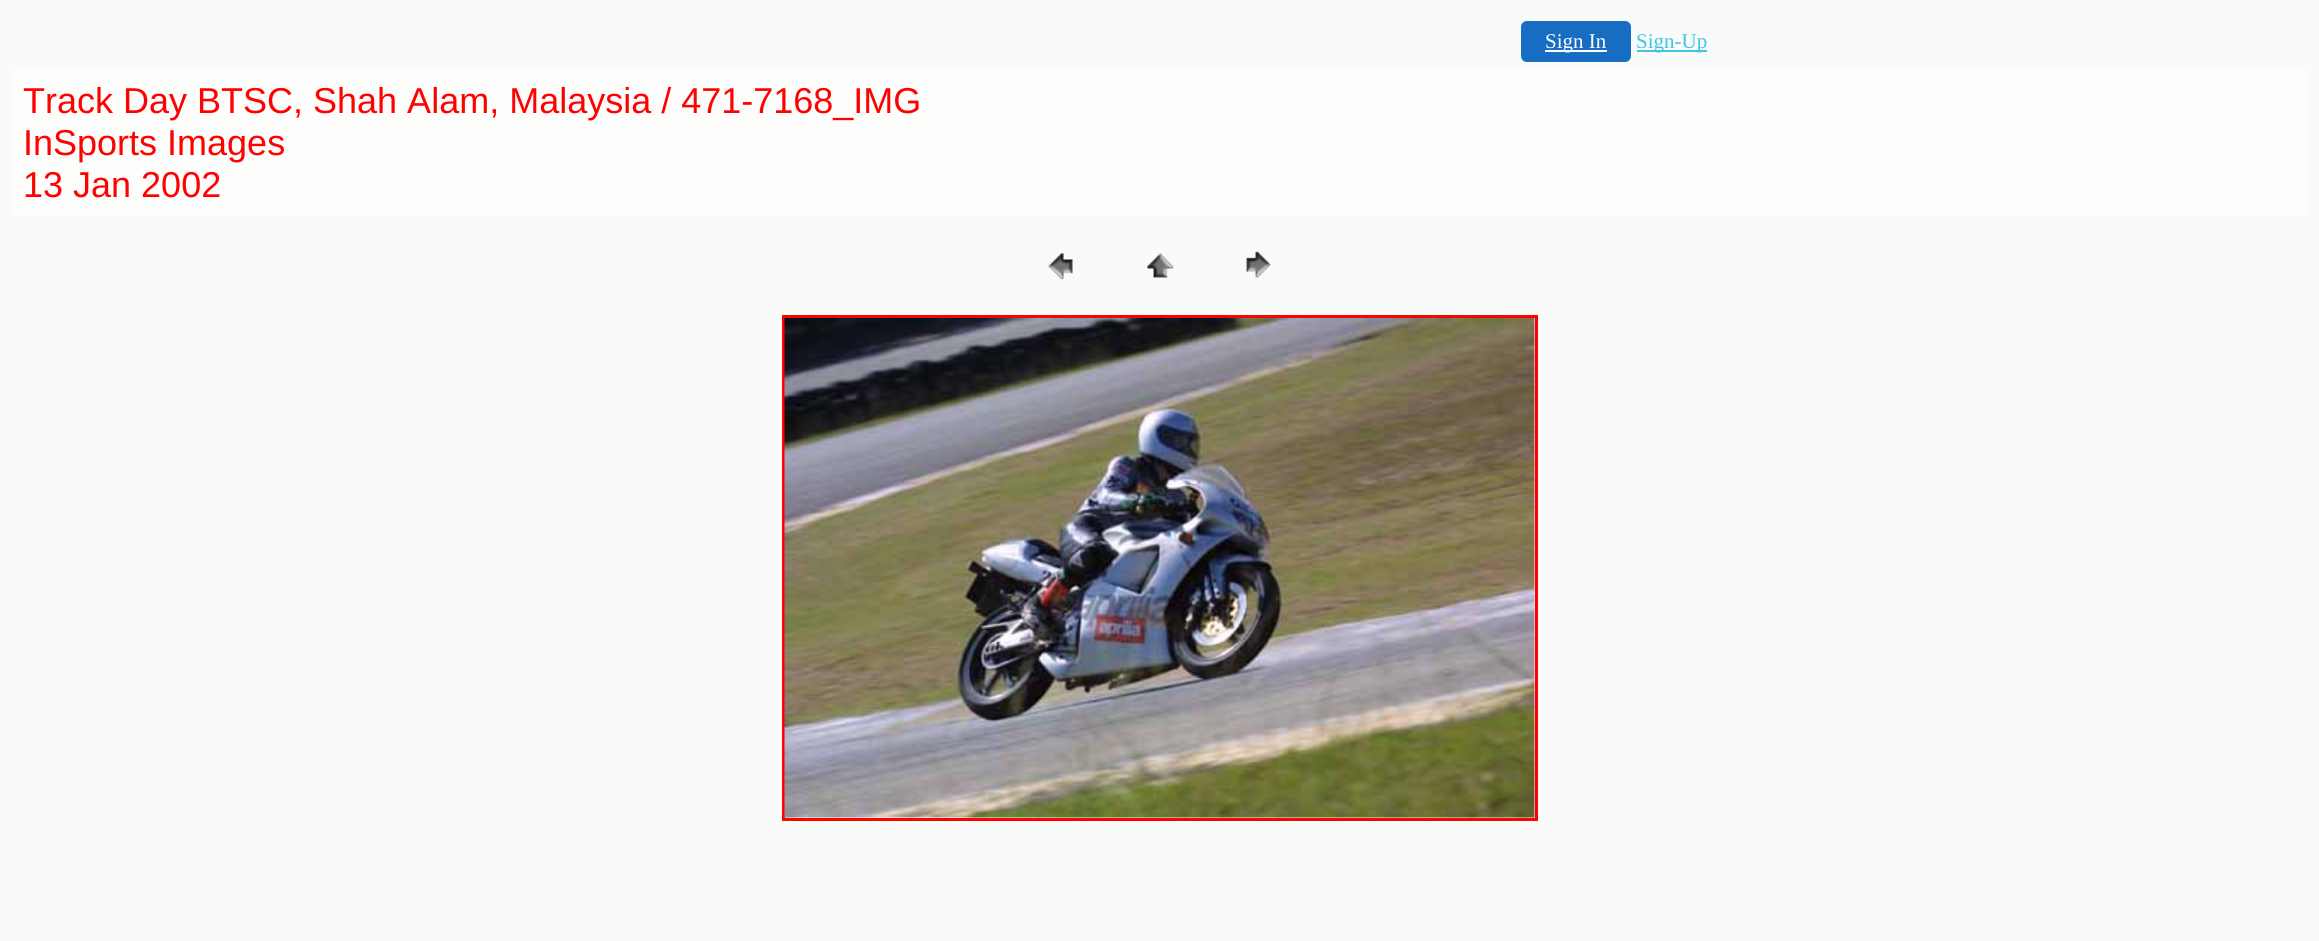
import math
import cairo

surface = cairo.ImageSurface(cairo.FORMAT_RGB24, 2319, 941)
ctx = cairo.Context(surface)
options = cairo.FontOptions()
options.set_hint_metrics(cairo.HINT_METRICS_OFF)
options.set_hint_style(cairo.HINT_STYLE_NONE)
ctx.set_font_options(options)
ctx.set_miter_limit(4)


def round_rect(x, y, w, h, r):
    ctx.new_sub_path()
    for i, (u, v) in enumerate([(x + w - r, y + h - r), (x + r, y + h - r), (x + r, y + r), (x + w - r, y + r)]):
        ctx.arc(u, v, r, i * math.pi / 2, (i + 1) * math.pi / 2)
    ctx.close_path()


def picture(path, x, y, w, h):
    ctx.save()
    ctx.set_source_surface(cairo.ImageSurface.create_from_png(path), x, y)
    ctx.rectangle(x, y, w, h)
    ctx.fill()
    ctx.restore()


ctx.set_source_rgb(0.969, 0.984, 0.98)
ctx.paint()
ctx.set_source_rgb(0.086, 0.427, 0.761)
round_rect(1522, 22, 108, 39, 5)
ctx.fill_preserve()
ctx.stroke()
ctx.set_source_rgb(1, 1, 1)
ctx.rectangle(1545, 50, 62, 2)
ctx.fill()
ctx.select_font_face("Liberation Serif")
ctx.set_font_size(21)
ctx.move_to(1545, 48)
ctx.show_text("Sign In")
ctx.set_source_rgb(0.255, 0.773, 0.894)
ctx.rectangle(1637, 50, 70, 2)
ctx.fill()
ctx.move_to(1636, 48)
ctx.show_text("Sign-Up")
ctx.set_source_rgb(0.992, 0.992, 0.984)
ctx.rectangle(12, 69, 2295, 147)
ctx.fill()
ctx.select_font_face("Liberation Sans")
ctx.set_font_size(36)
ctx.set_source_rgb(0.996, 0.008, 0.008)
ctx.move_to(23, 113)
ctx.show_text("Track Day BTSC, Shah Alam, Malaysia / 471-7168_IMG")
ctx.move_to(23, 155)
ctx.show_text("InSports Images")
ctx.move_to(23, 197)
ctx.show_text("13 Jan 2002")
picture("img1.png", 1048, 253, 25, 27)
picture("img2.png", 1147, 253, 27, 25)
picture("img3.png", 1246, 251, 25, 27)
ctx.rectangle(783.5, 316.5, 753, 503)
ctx.set_line_width(3)
ctx.stroke()
picture("img4.png", 784, 318, 751, 500)
surface.write_to_png("page.png")
